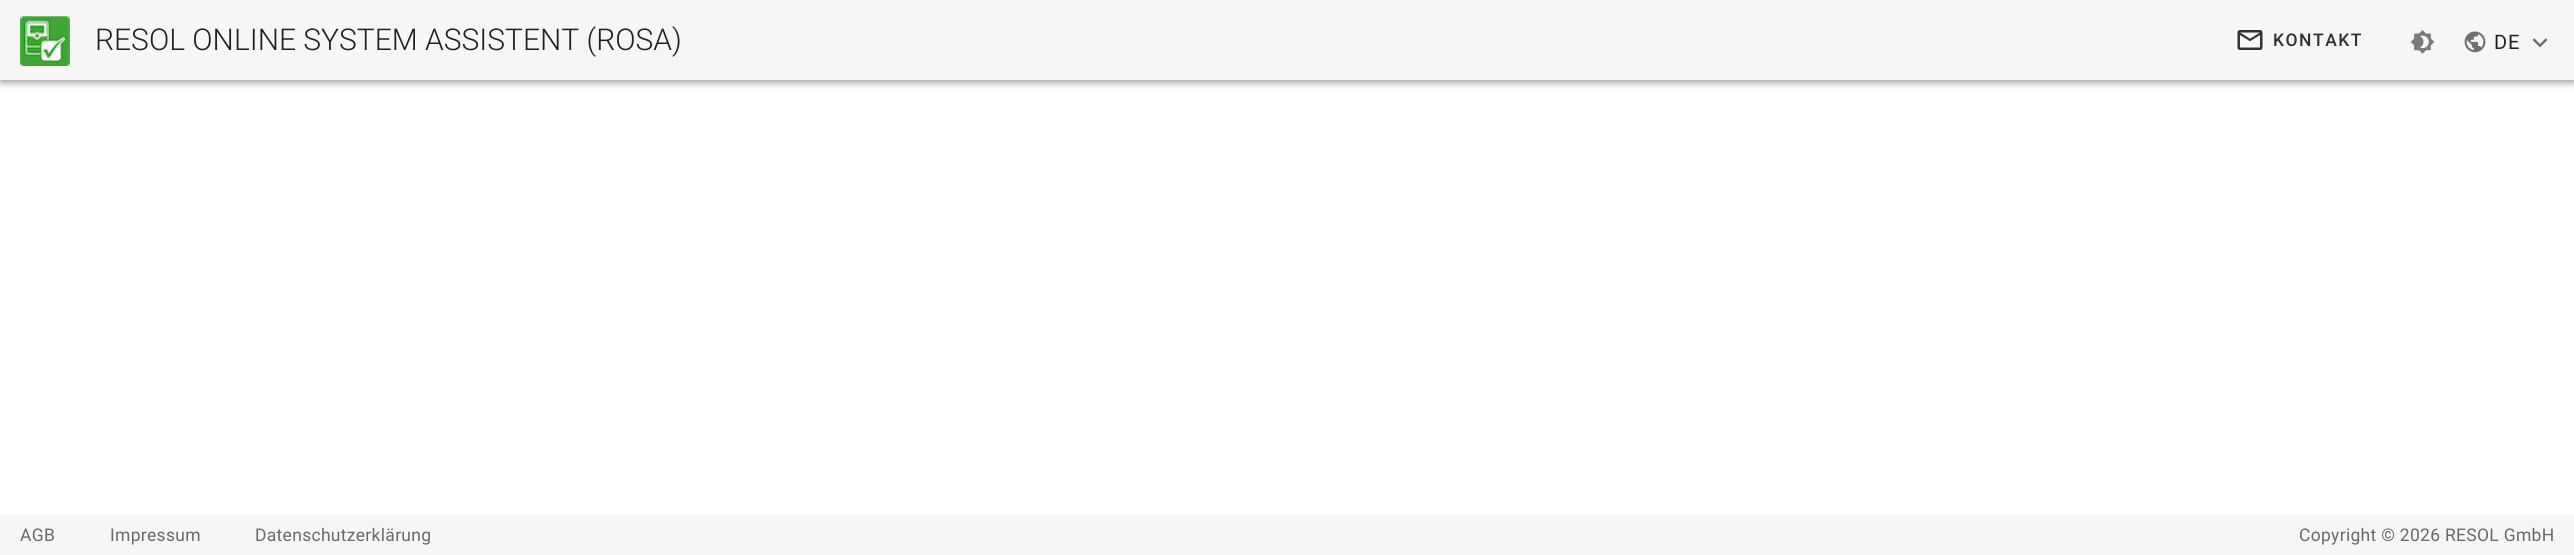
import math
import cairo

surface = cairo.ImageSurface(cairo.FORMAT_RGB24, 2574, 555)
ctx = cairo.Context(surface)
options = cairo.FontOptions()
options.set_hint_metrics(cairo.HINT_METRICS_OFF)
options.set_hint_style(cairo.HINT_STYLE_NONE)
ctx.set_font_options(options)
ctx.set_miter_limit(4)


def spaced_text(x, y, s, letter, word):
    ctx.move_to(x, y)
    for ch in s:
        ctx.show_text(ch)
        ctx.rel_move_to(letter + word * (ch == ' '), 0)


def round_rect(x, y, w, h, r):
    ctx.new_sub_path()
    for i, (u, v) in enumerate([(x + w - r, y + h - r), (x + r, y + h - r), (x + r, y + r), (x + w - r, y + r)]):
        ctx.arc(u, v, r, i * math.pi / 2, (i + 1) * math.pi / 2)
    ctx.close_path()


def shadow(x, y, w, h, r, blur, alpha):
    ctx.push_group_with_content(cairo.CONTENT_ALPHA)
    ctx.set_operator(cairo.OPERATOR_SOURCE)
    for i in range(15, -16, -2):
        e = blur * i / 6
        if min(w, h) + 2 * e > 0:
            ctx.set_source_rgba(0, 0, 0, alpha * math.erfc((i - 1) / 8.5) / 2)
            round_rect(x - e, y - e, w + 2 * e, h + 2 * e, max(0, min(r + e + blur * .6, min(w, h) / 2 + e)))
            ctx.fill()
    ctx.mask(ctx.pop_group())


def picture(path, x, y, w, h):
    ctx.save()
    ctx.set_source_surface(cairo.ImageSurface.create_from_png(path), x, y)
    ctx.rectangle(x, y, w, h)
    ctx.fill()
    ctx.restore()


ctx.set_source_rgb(1, 1, 1)
ctx.paint()
ctx.set_source_rgb(0, 0, 0)
shadow(0, 1, 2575, 80, 0, 6, 0.12)
shadow(0, 5, 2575, 80, 0, 3, 0.14)
shadow(1, 4, 2573, 77, 0, 2.5, 0.2)
ctx.set_source_rgb(0.961, 0.961, 0.961)
ctx.rectangle(0, 0, 2574, 80)
ctx.fill()
picture("img1.png", 20, 16, 50, 50)
ctx.select_font_face("Roboto Light")
ctx.set_font_size(30)
ctx.set_source_rgb(0.125, 0.125, 0.125)
ctx.move_to(95, 50)
ctx.show_text("RESOL ONLINE SYSTEM ASSISTENT (ROSA)")
picture("img2.png", 2237, 30, 26, 20)
ctx.select_font_face("Roboto Medium")
ctx.set_font_size(17.5)
ctx.set_source_rgb(0.192, 0.192, 0.192)
spaced_text(2273, 46, "KONTAKT", 1.5, 0)
picture("img3.png", 2410, 30, 25, 24)
picture("img4.png", 2464, 31, 22, 22)
ctx.select_font_face("Roboto")
ctx.set_font_size(20)
ctx.set_source_rgb(0.125, 0.125, 0.125)
spaced_text(2494, 49, "DE", 1, 0)
picture("img5.png", 2532, 38, 16, 10)
ctx.set_source_rgb(0.961, 0.961, 0.961)
ctx.rectangle(0, 515, 2574, 40)
ctx.fill()
ctx.set_font_size(17.5)
ctx.set_source_rgb(0.412, 0.412, 0.412)
spaced_text(20, 541, "AGB", 0.3, 0)
spaced_text(110, 541, "Impressum", 0.3, 0)
spaced_text(255, 541, "Datenschutzerklärung", 0.3, 0)
spaced_text(2299, 541, "Copyright © 2026 RESOL GmbH", 0.3, 0)
surface.write_to_png("page.png")
